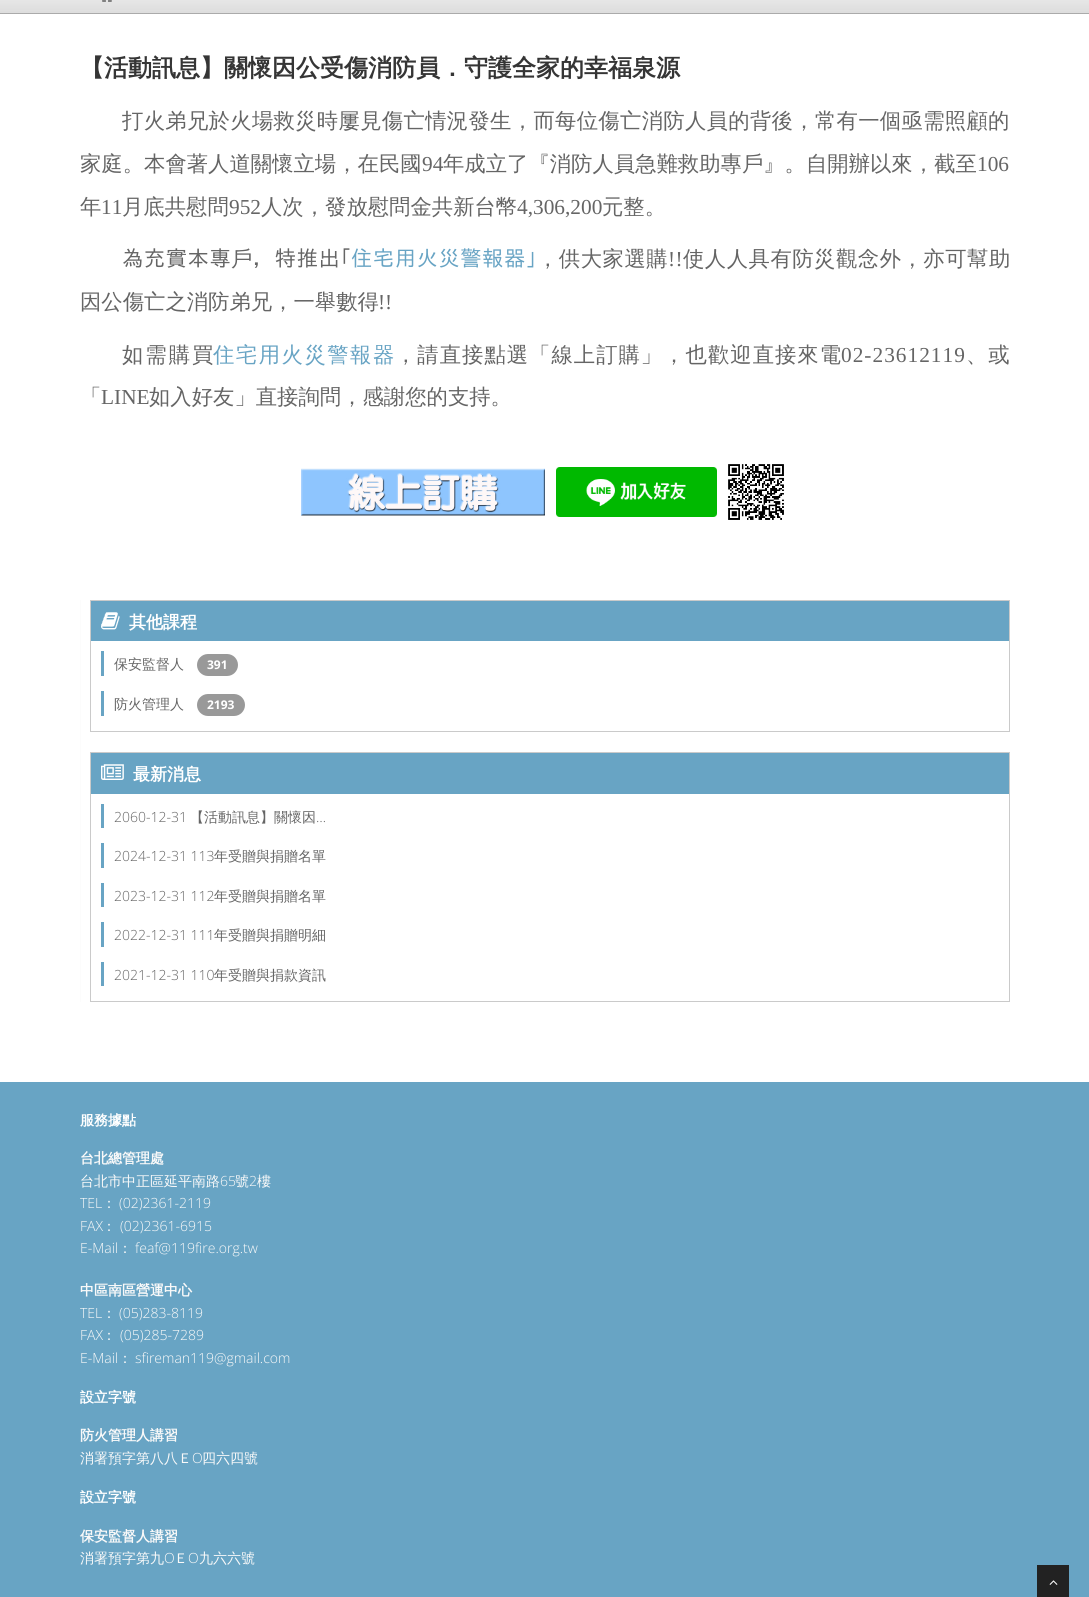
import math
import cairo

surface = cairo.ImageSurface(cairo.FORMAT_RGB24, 1089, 1597)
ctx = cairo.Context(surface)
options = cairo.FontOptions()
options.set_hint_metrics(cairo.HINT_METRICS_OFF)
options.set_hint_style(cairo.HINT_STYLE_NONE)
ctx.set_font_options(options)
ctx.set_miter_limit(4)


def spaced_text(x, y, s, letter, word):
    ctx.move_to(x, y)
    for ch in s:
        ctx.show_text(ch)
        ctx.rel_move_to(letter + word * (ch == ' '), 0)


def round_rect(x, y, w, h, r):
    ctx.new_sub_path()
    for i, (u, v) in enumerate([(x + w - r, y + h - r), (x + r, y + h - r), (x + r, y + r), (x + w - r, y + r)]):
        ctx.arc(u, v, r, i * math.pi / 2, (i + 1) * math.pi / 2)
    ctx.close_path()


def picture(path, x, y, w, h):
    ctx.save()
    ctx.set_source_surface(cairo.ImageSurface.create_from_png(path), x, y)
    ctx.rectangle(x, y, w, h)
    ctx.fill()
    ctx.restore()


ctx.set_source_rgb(1, 1, 1)
ctx.paint()
picture("img1.png", 0, 0, 1089, 14)
picture("img2.png", 102, 0, 10, 2)
ctx.select_font_face("WenQuanYi Zen Hei", cairo.FONT_SLANT_NORMAL, cairo.FONT_WEIGHT_BOLD)
ctx.set_font_size(24)
ctx.set_source_rgb(0.208, 0.208, 0.208)
ctx.move_to(80, 76)
ctx.show_text("【活動訊息】關懷因公受傷消防員．守護全家的幸福泉源")
ctx.select_font_face("WenQuanYi Zen Hei Medium")
ctx.set_font_size(21.35)
ctx.set_source_rgb(0.396, 0.396, 0.396)
spaced_text(122, 128, "打火弟兄於火場救災時屢見傷亡情況發生，而每位傷亡消防人員的背後，常有一個亟需照顧的", 0.3, 0)
ctx.move_to(80, 171)
ctx.show_text("家庭。本會著人道關懷立場，在民國")
ctx.select_font_face("Liberation Serif")
ctx.move_to(422, 171)
ctx.show_text("94")
ctx.select_font_face("WenQuanYi Zen Hei Medium")
ctx.move_to(443, 171)
ctx.show_text("年成立了『消防人員急難救助專戶』。自開辦以來，截至")
ctx.select_font_face("Liberation Serif")
ctx.move_to(977, 171)
ctx.show_text("106")
ctx.select_font_face("WenQuanYi Zen Hei Medium")
ctx.move_to(80, 214)
ctx.show_text("年")
ctx.select_font_face("Liberation Serif")
ctx.move_to(101, 214)
ctx.show_text("11")
ctx.select_font_face("WenQuanYi Zen Hei Medium")
ctx.move_to(122, 214)
ctx.show_text("月底共慰問")
ctx.select_font_face("Liberation Serif")
ctx.move_to(229, 214)
ctx.show_text("952")
ctx.select_font_face("WenQuanYi Zen Hei Medium")
ctx.move_to(261, 214)
ctx.show_text("人次，發放慰問金共新台幣")
ctx.select_font_face("Liberation Serif")
ctx.move_to(517, 214)
ctx.show_text("4,306,200")
ctx.select_font_face("WenQuanYi Zen Hei Medium")
ctx.move_to(602, 214)
ctx.show_text("元整。")
ctx.select_font_face("IPAGothic")
spaced_text(122, 266, "為充實本專", 0.5, 0)
ctx.select_font_face("WenQuanYi Zen Hei Medium")
spaced_text(231, 266, "戶", 0.5, 0)
ctx.select_font_face("IPAGothic")
spaced_text(253, 266, "，特推出｢", 0.5, 0)
ctx.set_source_rgb(0.408, 0.643, 0.769)
spaced_text(351, 266, "住宅用火災警報器｣", 0.5, 0)
ctx.select_font_face("WenQuanYi Zen Hei Medium")
ctx.set_source_rgb(0.396, 0.396, 0.396)
spaced_text(537, 266, "，供大家選購", 0.5, 0)
ctx.select_font_face("Liberation Serif")
spaced_text(668, 266, "!!", 0.5, 0)
ctx.select_font_face("WenQuanYi Zen Hei Medium")
spaced_text(683, 266, "使人人具有防災觀念外，亦可幫助", 0.5, 0)
ctx.move_to(80, 309)
ctx.show_text("因公傷亡之消防弟兄，一舉數得")
ctx.select_font_face("Liberation Serif")
ctx.move_to(378, 309)
ctx.show_text("!!")
ctx.select_font_face("WenQuanYi Zen Hei Medium")
spaced_text(122, 362, "如需購買", 2, 0)
ctx.set_source_rgb(0.408, 0.643, 0.769)
spaced_text(213, 362, "住宅用火災警報器", 1.5, 0)
ctx.set_source_rgb(0.396, 0.396, 0.396)
spaced_text(395, 362, "，請直接點選「線上訂購」，也歡迎直接來電", 1, 0)
ctx.select_font_face("Liberation Serif")
spaced_text(841, 362, "02-23612119", 1, 0)
ctx.select_font_face("WenQuanYi Zen Hei Medium")
spaced_text(966, 362, "、或", 1, 0)
ctx.move_to(80, 404)
ctx.show_text("「")
ctx.select_font_face("Liberation Serif")
ctx.move_to(101, 404)
ctx.show_text("LINE")
ctx.select_font_face("WenQuanYi Zen Hei Medium")
ctx.move_to(149, 404)
ctx.show_text("如入好友」直接詢問，感謝您的支持。")
picture("img3.png", 301, 468, 244, 48)
picture("img4.png", 556, 467, 161, 50)
picture("img5.png", 728, 464, 56, 56)
ctx.set_source_rgb(0.988, 0.988, 0.988)
ctx.rectangle(80, 600, 1, 402)
ctx.fill()
ctx.rectangle(90.5, 600.5, 919, 131)
ctx.set_source_rgb(0.792, 0.792, 0.792)
ctx.set_line_width(1)
ctx.stroke()
ctx.set_source_rgb(0.408, 0.643, 0.769)
ctx.rectangle(91, 601, 918, 40)
ctx.fill()
picture("img6.png", 101, 612, 19, 18)
ctx.select_font_face("WenQuanYi Zen Hei", cairo.FONT_SLANT_NORMAL, cairo.FONT_WEIGHT_BOLD)
ctx.set_font_size(17)
ctx.set_source_rgb(1, 1, 1)
ctx.move_to(129, 628)
ctx.show_text("其他課程")
ctx.set_source_rgb(0.408, 0.643, 0.769)
ctx.rectangle(101, 651, 3, 25)
ctx.fill()
ctx.select_font_face("WenQuanYi Zen Hei Medium")
ctx.set_font_size(14)
ctx.set_source_rgb(0.396, 0.396, 0.396)
ctx.move_to(114, 669)
ctx.show_text("保安監督人")
ctx.set_source_rgb(0.6, 0.6, 0.6)
round_rect(197, 654, 41, 22, 11)
ctx.fill()
ctx.select_font_face("Open Sans", cairo.FONT_SLANT_NORMAL, cairo.FONT_WEIGHT_BOLD)
ctx.set_font_size(12)
ctx.set_source_rgb(1, 1, 1)
ctx.move_to(207, 669)
ctx.show_text("391")
ctx.set_source_rgb(0.408, 0.643, 0.769)
ctx.rectangle(101, 691, 3, 25)
ctx.fill()
ctx.select_font_face("WenQuanYi Zen Hei Medium")
ctx.set_font_size(14)
ctx.set_source_rgb(0.396, 0.396, 0.396)
ctx.move_to(114, 709)
ctx.show_text("防火管理人")
ctx.set_source_rgb(0.6, 0.6, 0.6)
round_rect(197, 694, 48, 22, 11)
ctx.fill()
ctx.select_font_face("Open Sans", cairo.FONT_SLANT_NORMAL, cairo.FONT_WEIGHT_BOLD)
ctx.set_font_size(12)
ctx.set_source_rgb(1, 1, 1)
ctx.move_to(207, 709)
ctx.show_text("2193")
ctx.rectangle(90.5, 752.5, 919, 249)
ctx.set_source_rgb(0.792, 0.792, 0.792)
ctx.stroke()
ctx.set_source_rgb(0.408, 0.643, 0.769)
ctx.rectangle(91, 753, 918, 41)
ctx.fill()
picture("img7.png", 101, 764, 23, 16)
ctx.select_font_face("WenQuanYi Zen Hei", cairo.FONT_SLANT_NORMAL, cairo.FONT_WEIGHT_BOLD)
ctx.set_font_size(17)
ctx.set_source_rgb(1, 1, 1)
ctx.move_to(133, 780)
ctx.show_text("最新消息")
ctx.set_source_rgb(0.408, 0.643, 0.769)
ctx.rectangle(101, 804, 3, 24)
ctx.fill()
ctx.select_font_face("Open Sans Light")
ctx.set_font_size(14)
ctx.set_source_rgb(0.396, 0.396, 0.396)
ctx.move_to(114, 822)
ctx.show_text("2060-12-31")
ctx.select_font_face("WenQuanYi Zen Hei Medium")
ctx.move_to(190, 822)
ctx.show_text("【活動訊息】關懷因")
ctx.select_font_face("Open Sans Light")
ctx.move_to(316, 822)
ctx.show_text("…")
ctx.set_source_rgb(0.408, 0.643, 0.769)
ctx.rectangle(101, 843, 3, 25)
ctx.fill()
ctx.set_source_rgb(0.396, 0.396, 0.396)
ctx.move_to(114, 861)
ctx.show_text("2024-12-31 113")
ctx.select_font_face("WenQuanYi Zen Hei Medium")
ctx.move_to(214, 861)
ctx.show_text("年受贈與捐贈名單")
ctx.set_source_rgb(0.408, 0.643, 0.769)
ctx.rectangle(101, 883, 3, 24)
ctx.fill()
ctx.select_font_face("Open Sans Light")
ctx.set_source_rgb(0.396, 0.396, 0.396)
ctx.move_to(114, 901)
ctx.show_text("2023-12-31 112")
ctx.select_font_face("WenQuanYi Zen Hei Medium")
ctx.move_to(214, 901)
ctx.show_text("年受贈與捐贈名單")
ctx.set_source_rgb(0.408, 0.643, 0.769)
ctx.rectangle(101, 922, 3, 25)
ctx.fill()
ctx.select_font_face("Open Sans Light")
ctx.set_source_rgb(0.396, 0.396, 0.396)
ctx.move_to(114, 940)
ctx.show_text("2022-12-31 111")
ctx.select_font_face("WenQuanYi Zen Hei Medium")
ctx.move_to(214, 940)
ctx.show_text("年受贈與捐贈明細")
ctx.set_source_rgb(0.408, 0.643, 0.769)
ctx.rectangle(101, 962, 3, 24)
ctx.fill()
ctx.select_font_face("Open Sans Light")
ctx.set_source_rgb(0.396, 0.396, 0.396)
ctx.move_to(114, 980)
ctx.show_text("2021-12-31 110")
ctx.select_font_face("WenQuanYi Zen Hei Medium")
ctx.move_to(214, 980)
ctx.show_text("年受贈與捐款資訊")
ctx.set_source_rgb(0.408, 0.643, 0.769)
ctx.rectangle(0, 1082, 1089, 515)
ctx.fill()
ctx.select_font_face("WenQuanYi Zen Hei", cairo.FONT_SLANT_NORMAL, cairo.FONT_WEIGHT_BOLD)
ctx.set_source_rgb(1, 1, 1)
ctx.move_to(80, 1125)
ctx.show_text("服務據點")
ctx.set_source_rgb(0.973, 0.973, 0.973)
ctx.move_to(80, 1163)
ctx.show_text("台北總管理處")
ctx.select_font_face("WenQuanYi Zen Hei Medium")
ctx.move_to(80, 1186)
ctx.show_text("台北市中正區延平南路")
ctx.select_font_face("Open Sans Light")
ctx.move_to(220, 1186)
ctx.show_text("65")
ctx.select_font_face("WenQuanYi Zen Hei Medium")
ctx.move_to(235, 1186)
ctx.show_text("號")
ctx.select_font_face("Open Sans Light")
ctx.move_to(249, 1186)
ctx.show_text("2")
ctx.select_font_face("WenQuanYi Zen Hei Medium")
ctx.move_to(257, 1186)
ctx.show_text("樓")
ctx.select_font_face("Open Sans Light")
ctx.move_to(80, 1208)
ctx.show_text("TEL")
ctx.select_font_face("WenQuanYi Zen Hei Medium")
ctx.move_to(102, 1208)
ctx.show_text("：")
ctx.select_font_face("Open Sans Light")
ctx.move_to(119, 1208)
ctx.show_text("(02)2361-2119")
ctx.move_to(80, 1231)
ctx.show_text("FAX")
ctx.select_font_face("WenQuanYi Zen Hei Medium")
ctx.move_to(102, 1231)
ctx.show_text("：")
ctx.select_font_face("Open Sans Light")
ctx.move_to(120, 1231)
ctx.show_text("(02)2361-6915")
ctx.move_to(80, 1253)
ctx.show_text("E-Mail")
ctx.select_font_face("WenQuanYi Zen Hei Medium")
ctx.move_to(118, 1253)
ctx.show_text("：")
ctx.select_font_face("Open Sans Light")
ctx.move_to(135, 1253)
ctx.show_text("feaf@119fire.org.tw")
ctx.select_font_face("WenQuanYi Zen Hei", cairo.FONT_SLANT_NORMAL, cairo.FONT_WEIGHT_BOLD)
ctx.move_to(80, 1295)
ctx.show_text("中區南區營運中心")
ctx.select_font_face("Open Sans Light")
ctx.move_to(80, 1318)
ctx.show_text("TEL")
ctx.select_font_face("WenQuanYi Zen Hei Medium")
ctx.move_to(102, 1318)
ctx.show_text("：")
ctx.select_font_face("Open Sans Light")
ctx.move_to(119, 1318)
ctx.show_text("(05)283-8119")
ctx.move_to(80, 1340)
ctx.show_text("FAX")
ctx.select_font_face("WenQuanYi Zen Hei Medium")
ctx.move_to(102, 1340)
ctx.show_text("：")
ctx.select_font_face("Open Sans Light")
ctx.move_to(120, 1340)
ctx.show_text("(05)285-7289")
ctx.move_to(80, 1363)
ctx.show_text("E-Mail")
ctx.select_font_face("WenQuanYi Zen Hei Medium")
ctx.move_to(118, 1363)
ctx.show_text("：")
ctx.select_font_face("Open Sans Light")
ctx.move_to(135, 1363)
ctx.show_text("sfireman119@gmail.com")
ctx.select_font_face("WenQuanYi Zen Hei", cairo.FONT_SLANT_NORMAL, cairo.FONT_WEIGHT_BOLD)
ctx.set_source_rgb(1, 1, 1)
ctx.move_to(80, 1402)
ctx.show_text("設立字號")
ctx.set_source_rgb(0.973, 0.973, 0.973)
ctx.move_to(80, 1440)
ctx.show_text("防火管理人講習")
ctx.select_font_face("WenQuanYi Zen Hei Medium")
ctx.move_to(80, 1463)
ctx.show_text("消署預字第八八Ｅ")
ctx.select_font_face("Open Sans Light")
ctx.move_to(192, 1463)
ctx.show_text("O")
ctx.select_font_face("WenQuanYi Zen Hei Medium")
ctx.move_to(202, 1463)
ctx.show_text("四六四號")
ctx.select_font_face("WenQuanYi Zen Hei", cairo.FONT_SLANT_NORMAL, cairo.FONT_WEIGHT_BOLD)
ctx.set_source_rgb(1, 1, 1)
ctx.move_to(80, 1502)
ctx.show_text("設立字號")
ctx.set_source_rgb(0.973, 0.973, 0.973)
ctx.move_to(80, 1541)
ctx.show_text("保安監督人講習")
ctx.select_font_face("WenQuanYi Zen Hei Medium")
ctx.move_to(80, 1563)
ctx.show_text("消署預字第九")
ctx.select_font_face("Open Sans Light")
ctx.move_to(164, 1563)
ctx.show_text("O")
ctx.select_font_face("WenQuanYi Zen Hei Medium")
ctx.move_to(174, 1563)
ctx.show_text("Ｅ")
ctx.select_font_face("Open Sans Light")
ctx.move_to(188, 1563)
ctx.show_text("O")
ctx.select_font_face("WenQuanYi Zen Hei Medium")
ctx.move_to(199, 1563)
ctx.show_text("九六六號")
ctx.set_source_rgb(0.133, 0.133, 0.133)
ctx.rectangle(1037, 1565, 32, 32)
ctx.fill()
picture("img8.png", 1049, 1580, 9, 5)
surface.write_to_png("page.png")
